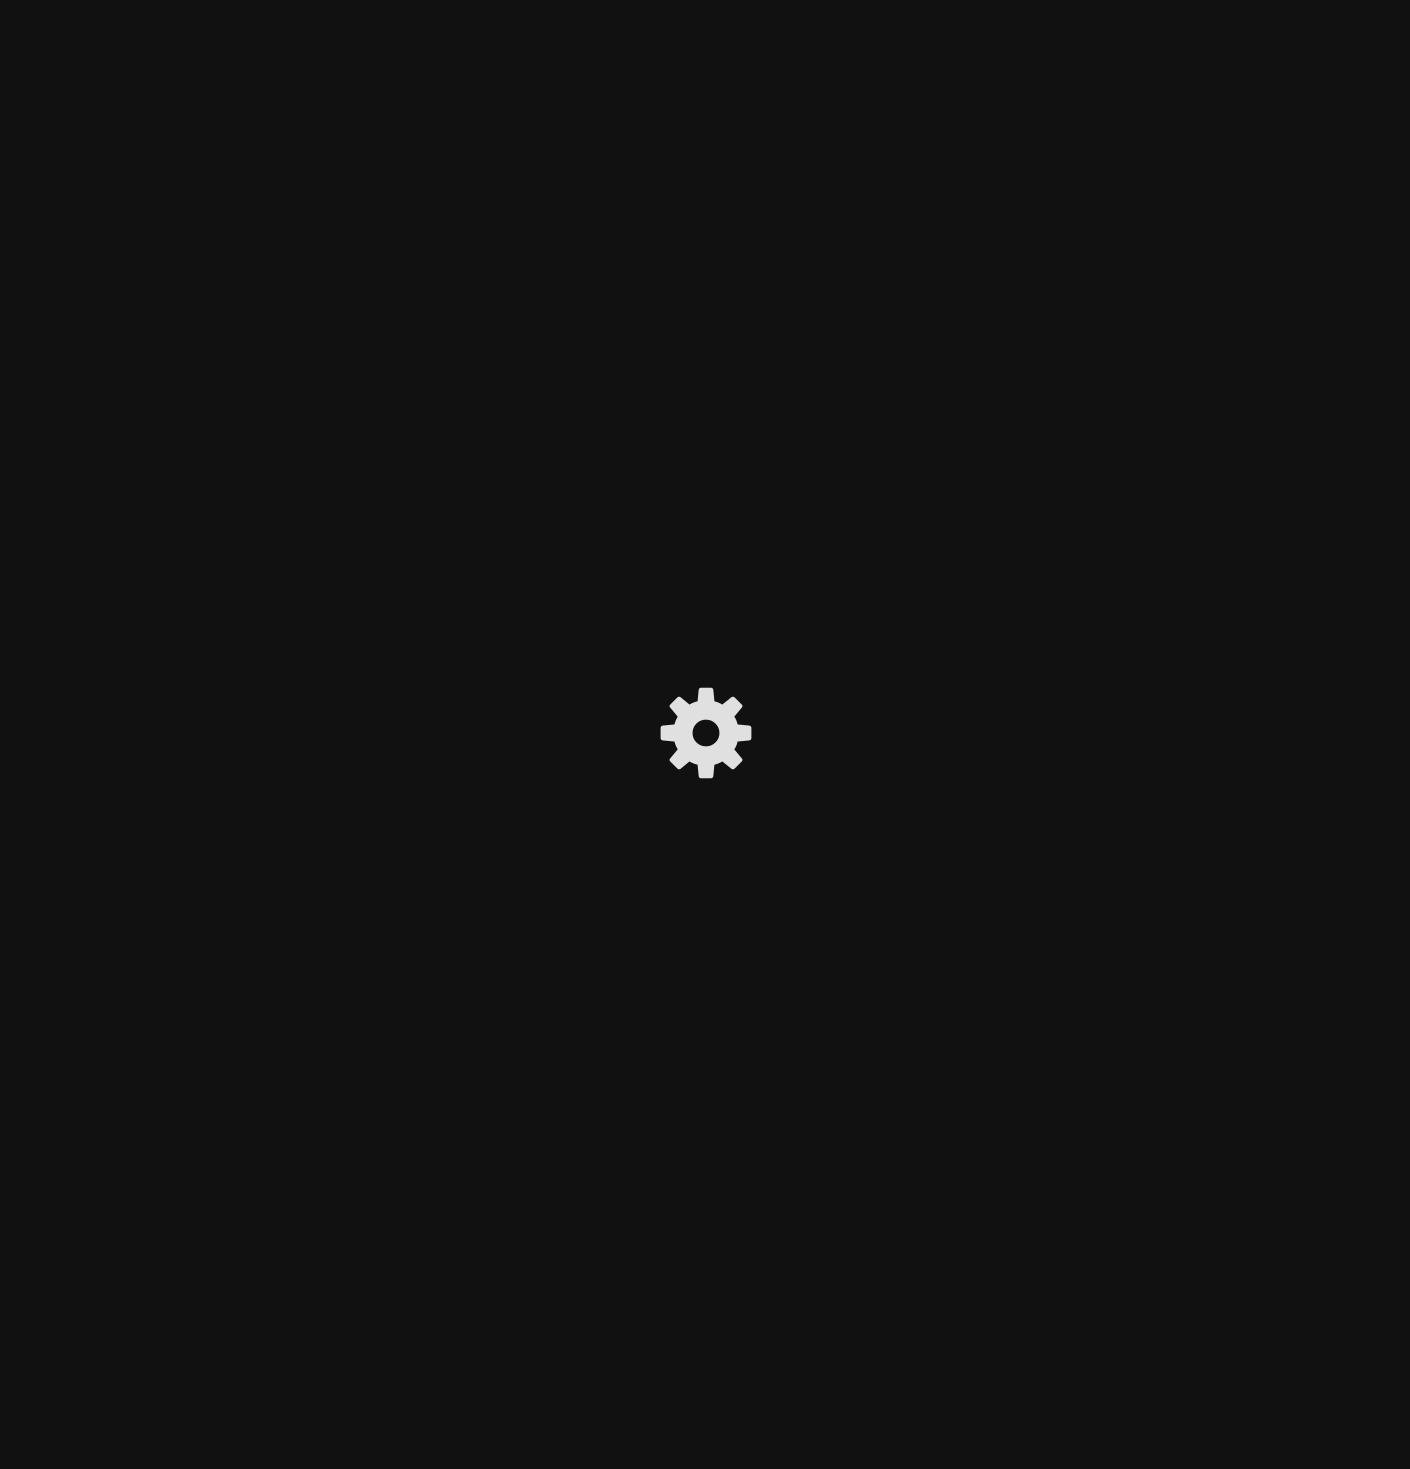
import math
import cairo

surface = cairo.ImageSurface(cairo.FORMAT_RGB24, 1410, 1469)
ctx = cairo.Context(surface)
options = cairo.FontOptions()
options.set_hint_metrics(cairo.HINT_METRICS_OFF)
options.set_hint_style(cairo.HINT_STYLE_NONE)
ctx.set_font_options(options)
ctx.set_miter_limit(4)


def picture(path, x, y, w, h):
    ctx.save()
    ctx.set_source_surface(cairo.ImageSurface.create_from_png(path), x, y)
    ctx.rectangle(x, y, w, h)
    ctx.fill()
    ctx.restore()


ctx.set_source_rgb(0.067, 0.067, 0.067)
ctx.paint()
picture("img1.png", 660, 687, 92, 92)
surface.write_to_png("page.png")
